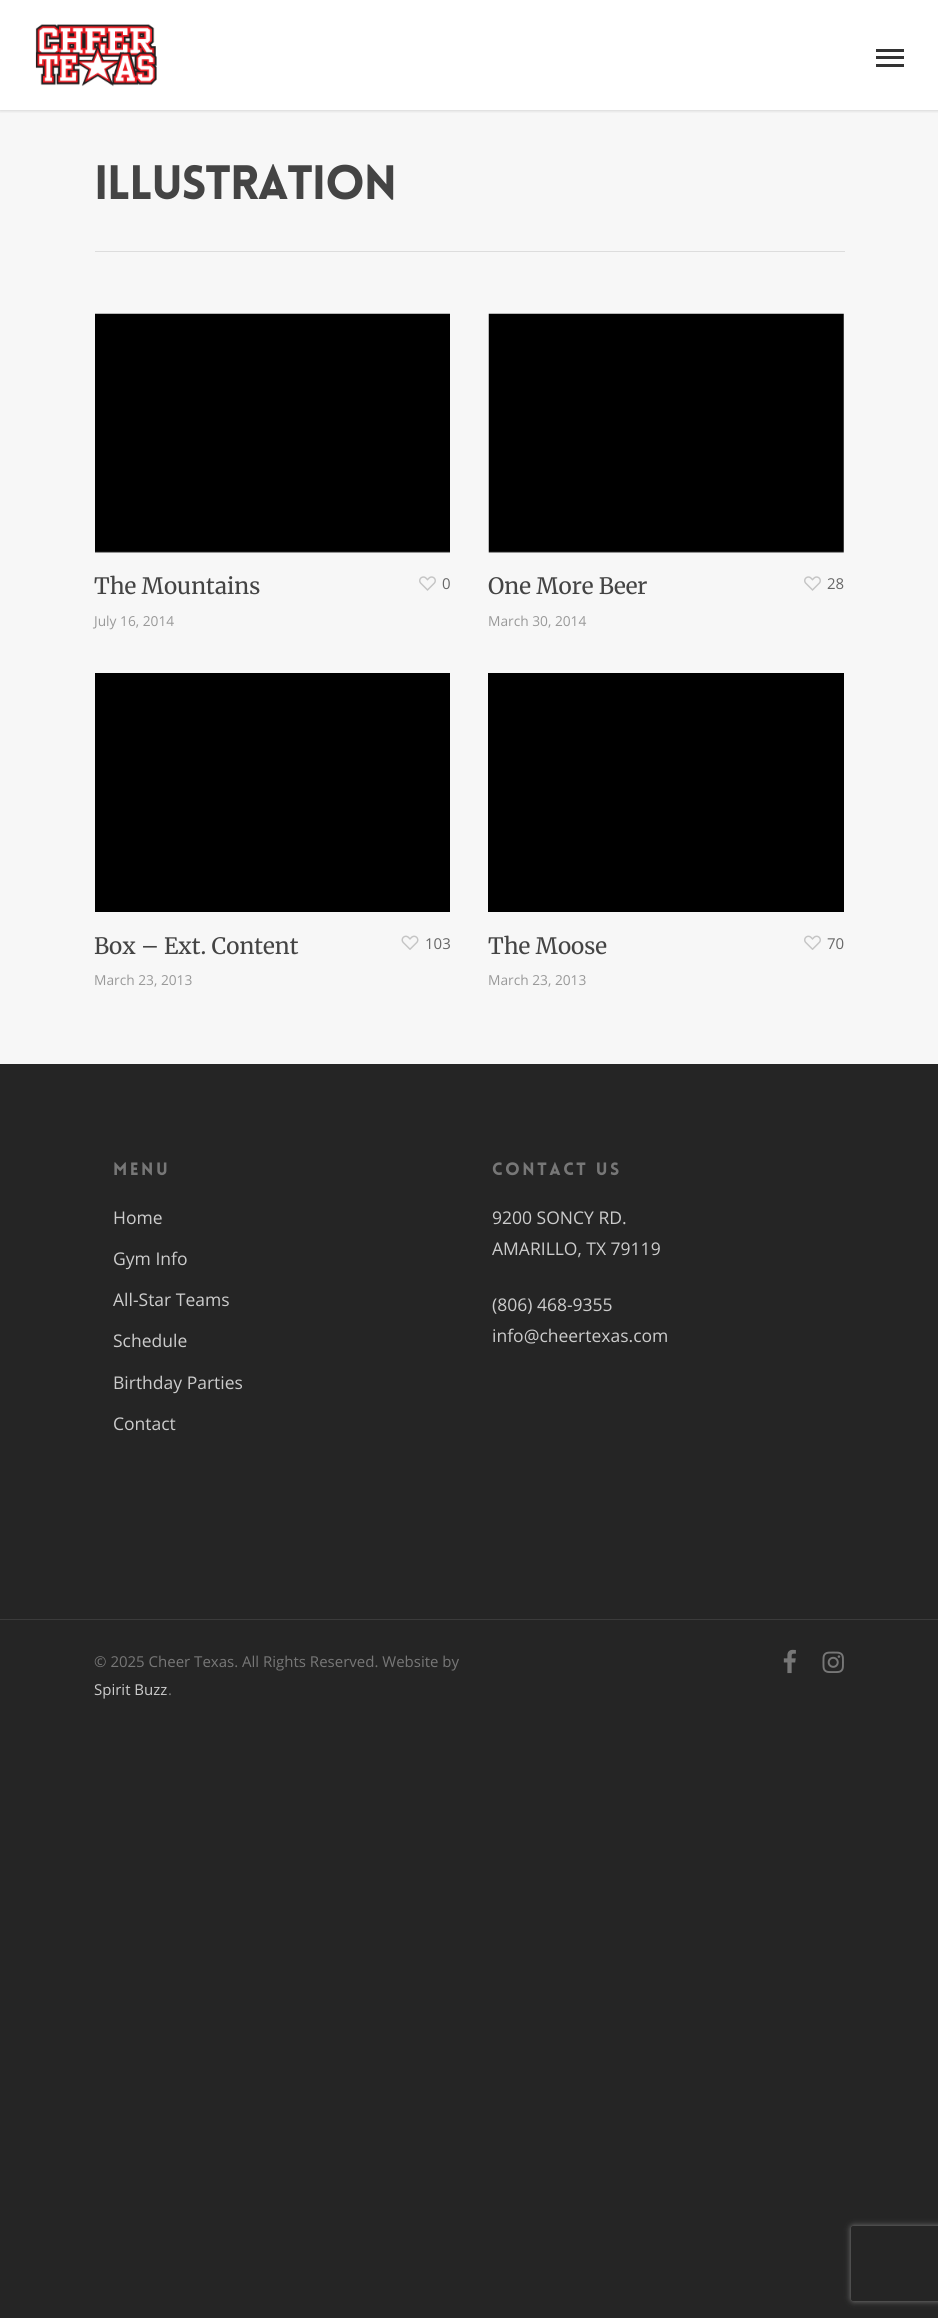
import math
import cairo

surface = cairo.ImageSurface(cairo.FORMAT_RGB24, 938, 2318)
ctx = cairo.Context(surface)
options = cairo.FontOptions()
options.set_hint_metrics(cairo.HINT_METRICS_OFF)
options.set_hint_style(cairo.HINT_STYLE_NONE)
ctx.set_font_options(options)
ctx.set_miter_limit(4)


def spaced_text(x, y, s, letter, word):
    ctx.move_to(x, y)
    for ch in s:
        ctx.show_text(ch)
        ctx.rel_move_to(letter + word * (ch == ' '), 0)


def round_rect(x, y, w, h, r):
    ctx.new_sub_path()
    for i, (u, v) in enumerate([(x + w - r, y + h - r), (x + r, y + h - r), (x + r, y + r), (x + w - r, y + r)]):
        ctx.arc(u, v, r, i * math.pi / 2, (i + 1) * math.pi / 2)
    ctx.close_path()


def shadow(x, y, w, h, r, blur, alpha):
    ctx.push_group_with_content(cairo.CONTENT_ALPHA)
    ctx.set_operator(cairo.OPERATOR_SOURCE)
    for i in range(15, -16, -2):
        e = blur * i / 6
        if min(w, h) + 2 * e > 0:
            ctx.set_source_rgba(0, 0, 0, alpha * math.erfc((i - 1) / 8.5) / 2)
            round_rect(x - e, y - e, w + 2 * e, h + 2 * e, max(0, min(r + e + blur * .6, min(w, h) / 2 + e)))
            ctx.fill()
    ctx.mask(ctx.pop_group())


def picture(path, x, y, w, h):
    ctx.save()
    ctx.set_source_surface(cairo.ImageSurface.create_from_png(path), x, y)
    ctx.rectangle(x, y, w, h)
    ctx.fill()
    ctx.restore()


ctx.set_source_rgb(0.145, 0.145, 0.145)
ctx.paint()
ctx.set_source_rgb(1, 1, 1)
ctx.rectangle(0, 0, 938, 110)
ctx.fill()
ctx.set_source_rgb(0.965, 0.965, 0.965)
ctx.rectangle(0, 110, 938, 954)
ctx.fill()
ctx.save()
ctx.rectangle(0, 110, 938, 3)
ctx.clip()
ctx.set_source_rgb(0, 0, 0)
shadow(0, 0, 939, 110, 0, 2, 0.22)
ctx.restore()
picture("img1.png", 35, 24, 122, 63)
ctx.set_source_rgb(0.2, 0.2, 0.2)
ctx.rectangle(876, 49, 28, 3)
ctx.fill()
ctx.rectangle(876, 64, 28, 3)
ctx.fill()
ctx.rectangle(876, 56, 28, 3)
ctx.fill()
ctx.set_source_rgb(0.867, 0.867, 0.867)
ctx.rectangle(95, 251, 750, 1)
ctx.fill()
ctx.select_font_face("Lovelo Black")
ctx.set_font_size(47.25)
ctx.set_source_rgb(0.267, 0.267, 0.267)
spaced_text(94, 199, "Illustration", -1.25, 0)
picture("img2.png", 95, 313, 355, 240)
ctx.select_font_face("Merriweather Light")
ctx.set_font_size(22.5)
ctx.move_to(94, 594)
ctx.show_text("The Mountains")
ctx.select_font_face("Open Sans")
ctx.set_font_size(13.75)
ctx.set_source_rgb(0.6, 0.6, 0.6)
ctx.move_to(94, 626)
ctx.show_text("July 16, 2014")
picture("img3.png", 419, 576, 17, 15)
ctx.set_font_size(15)
ctx.set_source_rgb(0.404, 0.404, 0.404)
ctx.move_to(442, 589)
ctx.show_text("0")
picture("img4.png", 488, 313, 356, 240)
ctx.select_font_face("Merriweather Light")
ctx.set_font_size(22.5)
ctx.set_source_rgb(0.267, 0.267, 0.267)
ctx.move_to(488, 594)
ctx.show_text("One More Beer")
ctx.select_font_face("Open Sans")
ctx.set_font_size(13.75)
ctx.set_source_rgb(0.6, 0.6, 0.6)
ctx.move_to(488, 626)
ctx.show_text("March 30, 2014")
picture("img3.png", 804, 576, 17, 15)
ctx.set_font_size(15)
ctx.set_source_rgb(0.404, 0.404, 0.404)
ctx.move_to(827, 589)
ctx.show_text("28")
ctx.set_source_rgb(0, 0, 0)
ctx.rectangle(95, 673, 355, 239)
ctx.fill()
ctx.select_font_face("Merriweather Light")
ctx.set_font_size(22.5)
ctx.set_source_rgb(0.267, 0.267, 0.267)
ctx.move_to(94, 954)
ctx.show_text("Box – Ext. Content")
ctx.select_font_face("Open Sans")
ctx.set_font_size(13.75)
ctx.set_source_rgb(0.6, 0.6, 0.6)
ctx.move_to(94, 985)
ctx.show_text("March 23, 2013")
picture("img5.png", 401, 935, 18, 15)
ctx.set_font_size(15)
ctx.set_source_rgb(0.404, 0.404, 0.404)
ctx.move_to(425, 949)
ctx.show_text("103")
ctx.set_source_rgb(0, 0, 0)
ctx.rectangle(488, 673, 356, 239)
ctx.fill()
ctx.select_font_face("Merriweather Light")
ctx.set_font_size(22.5)
ctx.set_source_rgb(0.267, 0.267, 0.267)
ctx.move_to(488, 954)
ctx.show_text("The Moose")
ctx.select_font_face("Open Sans")
ctx.set_font_size(13.75)
ctx.set_source_rgb(0.6, 0.6, 0.6)
ctx.move_to(488, 985)
ctx.show_text("March 23, 2013")
picture("img6.png", 804, 935, 17, 15)
ctx.set_font_size(15)
ctx.set_source_rgb(0.404, 0.404, 0.404)
ctx.move_to(827, 949)
ctx.show_text("70")
ctx.select_font_face("Lovelo Black")
ctx.set_font_size(17.5)
ctx.set_source_rgb(0.467, 0.467, 0.467)
spaced_text(113, 1175, "MENU", 2.5, 0)
ctx.select_font_face("Open Sans")
ctx.set_source_rgb(0.8, 0.8, 0.8)
ctx.move_to(113, 1224)
ctx.show_text("Home")
ctx.move_to(113, 1265)
ctx.show_text("Gym Info")
ctx.move_to(113, 1306)
ctx.show_text("All-Star Teams")
ctx.move_to(113, 1347)
ctx.show_text("Schedule")
ctx.move_to(113, 1389)
ctx.show_text("Birthday Parties")
ctx.move_to(113, 1430)
ctx.show_text("Contact")
ctx.select_font_face("Lovelo Black")
ctx.set_source_rgb(0.467, 0.467, 0.467)
spaced_text(492, 1175, "CONTACT US", 2.5, 0)
ctx.select_font_face("Open Sans")
ctx.set_source_rgb(0.8, 0.8, 0.8)
ctx.move_to(492, 1224)
ctx.show_text("9200 SONCY RD.")
ctx.move_to(492, 1255)
ctx.show_text("AMARILLO, TX 79119")
ctx.move_to(492, 1311)
ctx.show_text("(806) 468-9355")
ctx.move_to(492, 1342)
ctx.show_text("info@cheertexas.com")
ctx.set_source_rgb(0.231, 0.231, 0.231)
ctx.rectangle(0, 1619, 938, 1)
ctx.fill()
ctx.set_font_size(15)
ctx.set_source_rgb(0.467, 0.467, 0.467)
ctx.move_to(94, 1667)
ctx.show_text("© 2025 Cheer Texas. All Rights Reserved. Website by")
ctx.set_source_rgb(0.8, 0.8, 0.8)
ctx.move_to(94, 1695)
ctx.show_text("Spirit Buzz")
ctx.set_source_rgb(0.467, 0.467, 0.467)
ctx.move_to(168, 1695)
ctx.show_text(".")
picture("img7.png", 783, 1649, 13, 25)
picture("img8.png", 822, 1651, 22, 22)
ctx.save()
ctx.set_fill_rule(cairo.FILL_RULE_EVEN_ODD)
ctx.new_path()
ctx.move_to(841, 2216)
ctx.line_to(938, 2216)
ctx.line_to(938, 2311)
ctx.line_to(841, 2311)
ctx.close_path()
ctx.move_to(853.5, 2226)
ctx.line_to(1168.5, 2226)
ctx.curve_to(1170, 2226, 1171, 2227, 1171, 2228.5)
ctx.line_to(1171, 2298.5)
ctx.curve_to(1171, 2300, 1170, 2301, 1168.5, 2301)
ctx.line_to(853.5, 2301)
ctx.curve_to(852, 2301, 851, 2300, 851, 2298.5)
ctx.line_to(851, 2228.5)
ctx.curve_to(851, 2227, 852, 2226, 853.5, 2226)
ctx.close_path()
ctx.clip()
ctx.set_source_rgb(0.502, 0.502, 0.502)
shadow(851, 2226, 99, 75, 2.5, 3, 1)
ctx.restore()
surface.write_to_png("page.png")
